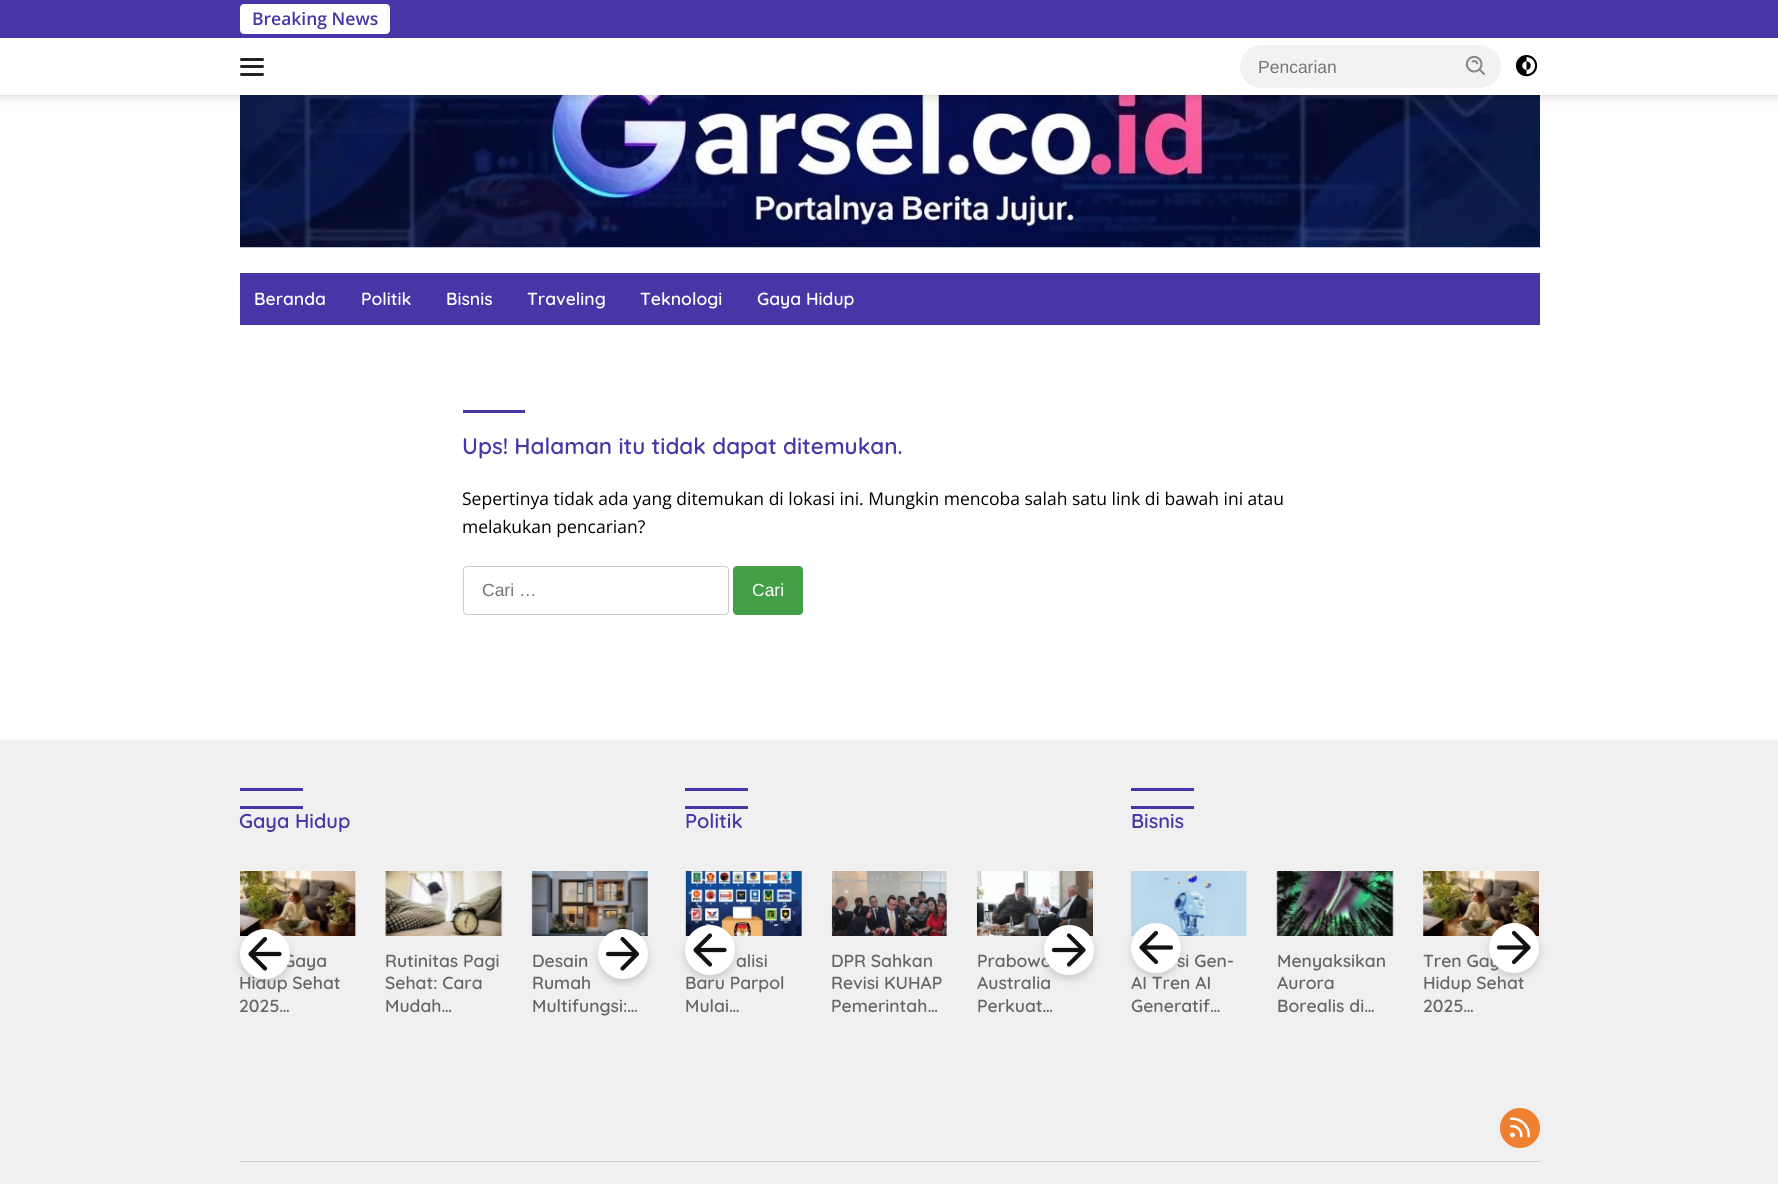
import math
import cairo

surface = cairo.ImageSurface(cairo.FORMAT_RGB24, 1778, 1184)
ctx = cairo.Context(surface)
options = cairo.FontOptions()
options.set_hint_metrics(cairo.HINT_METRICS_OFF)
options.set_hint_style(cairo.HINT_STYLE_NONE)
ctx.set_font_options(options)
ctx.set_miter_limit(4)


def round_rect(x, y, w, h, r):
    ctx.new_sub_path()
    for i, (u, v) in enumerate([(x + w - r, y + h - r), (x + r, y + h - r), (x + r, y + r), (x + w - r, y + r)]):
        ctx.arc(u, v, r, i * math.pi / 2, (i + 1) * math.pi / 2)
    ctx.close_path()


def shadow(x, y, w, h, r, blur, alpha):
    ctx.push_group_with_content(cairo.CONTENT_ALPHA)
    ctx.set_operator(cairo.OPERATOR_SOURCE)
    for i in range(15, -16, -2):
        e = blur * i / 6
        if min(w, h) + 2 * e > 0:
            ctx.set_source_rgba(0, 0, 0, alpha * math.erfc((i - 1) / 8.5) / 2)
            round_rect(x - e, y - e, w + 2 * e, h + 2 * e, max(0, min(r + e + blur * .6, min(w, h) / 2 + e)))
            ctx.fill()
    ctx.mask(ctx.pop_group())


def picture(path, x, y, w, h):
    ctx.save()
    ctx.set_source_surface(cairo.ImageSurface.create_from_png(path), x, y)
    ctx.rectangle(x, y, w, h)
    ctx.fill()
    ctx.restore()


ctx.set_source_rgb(1, 1, 1)
ctx.paint()
picture("img3.png", 240, 95, 1300, 153)
ctx.set_source_rgb(0, 0, 0)
shadow(0, 0, 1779, 95, 0, 6, 0.2)
ctx.set_source_rgb(1, 1, 1)
ctx.rectangle(0, 38, 1778, 57)
ctx.fill()
ctx.set_source_rgb(0.278, 0.212, 0.647)
ctx.rectangle(0, 0, 1778, 38)
ctx.fill()
ctx.set_source_rgb(1, 1, 1)
round_rect(240, 4, 150, 30, 4)
ctx.fill()
ctx.select_font_face("Open Sans SemiBold")
ctx.set_font_size(17.5)
ctx.set_source_rgb(0.278, 0.212, 0.647)
ctx.move_to(252, 25)
ctx.show_text("Breaking News")
ctx.set_source_rgb(0.133, 0.133, 0.133)
round_rect(240, 58, 24, 3, 1.5)
ctx.fill()
round_rect(240, 65, 24, 3, 1.5)
ctx.fill()
round_rect(240, 73, 24, 3, 1.5)
ctx.fill()
ctx.set_source_rgb(0.949, 0.949, 0.949)
round_rect(1240, 45, 261, 43, 21.5)
ctx.fill()
ctx.select_font_face("Liberation Sans")
ctx.set_source_rgb(0.459, 0.459, 0.459)
ctx.move_to(1258, 73)
ctx.show_text("Pencarian")
picture("img1.png", 1465, 55, 21, 21)
picture("img2.png", 1515, 55, 23, 22)
ctx.set_source_rgb(0.278, 0.212, 0.647)
ctx.rectangle(240, 273, 1300, 52)
ctx.fill()
ctx.select_font_face("Quicksand SemiBold")
ctx.set_source_rgb(1, 1, 1)
ctx.move_to(254, 305)
ctx.show_text("Beranda")
ctx.move_to(361, 305)
ctx.show_text("Politik")
ctx.move_to(446, 305)
ctx.show_text("Bisnis")
ctx.move_to(527, 305)
ctx.show_text("Traveling")
ctx.move_to(640, 305)
ctx.show_text("Teknologi")
ctx.move_to(757, 305)
ctx.show_text("Gaya Hidup")
ctx.set_source_rgb(0.278, 0.212, 0.647)
ctx.rectangle(463, 410, 62, 3)
ctx.fill()
ctx.set_font_size(22.5)
ctx.move_to(462, 454)
ctx.show_text("Ups! Halaman itu tidak dapat ditemukan.")
ctx.select_font_face("Open Sans")
ctx.set_font_size(17.5)
ctx.set_source_rgb(0, 0, 0)
ctx.move_to(462, 505)
ctx.show_text("Sepertinya tidak ada yang ditemukan di lokasi ini. Mungkin mencoba salah satu link di bawah ini atau")
ctx.move_to(462, 533)
ctx.show_text("melakukan pencarian?")
round_rect(463.5, 566.5, 265, 48, 3.5)
ctx.set_source_rgb(0.8, 0.8, 0.8)
ctx.set_line_width(1)
ctx.stroke()
ctx.select_font_face("Liberation Sans")
ctx.set_source_rgb(0.459, 0.459, 0.459)
ctx.move_to(482, 596)
ctx.show_text("Cari …")
ctx.set_source_rgb(0.263, 0.627, 0.278)
round_rect(733, 566, 70, 49, 4)
ctx.fill()
ctx.set_source_rgb(1, 1, 1)
ctx.move_to(752, 596)
ctx.show_text("Cari")
ctx.set_source_rgb(0.941, 0.941, 0.941)
ctx.rectangle(0, 740, 1778, 444)
ctx.fill()
ctx.set_source_rgb(0.278, 0.212, 0.647)
ctx.rectangle(240, 788, 63, 3)
ctx.fill()
ctx.rectangle(240, 806, 63, 3)
ctx.fill()
ctx.select_font_face("Quicksand SemiBold")
ctx.set_font_size(20)
ctx.move_to(239, 828)
ctx.show_text("Gaya Hidup")
picture("img4.png", 240, 871, 117, 65)
ctx.set_source_rgb(0.2, 0.2, 0.2)
shadow(240, 933, 50, 50, 25, 4, 0.2)
ctx.set_font_size(17.5)
ctx.set_source_rgb(0.4, 0.4, 0.4)
ctx.move_to(283, 967)
ctx.show_text("Gaya")
ctx.move_to(239, 989)
ctx.show_text("Hidup Sehat")
ctx.set_source_rgb(1, 1, 1)
ctx.new_path()
ctx.arc(265, 954, 25, 0, 2 * math.pi)
ctx.fill()
ctx.new_path()
ctx.move_to(279.5, 954)
ctx.line_to(250.5, 954)
ctx.move_to(265, 968.5)
ctx.line_to(250.5, 954)
ctx.line_to(265, 939)
ctx.set_source_rgb(0.067, 0.067, 0.067)
ctx.set_line_width(4.2)
ctx.set_line_cap(cairo.LINE_CAP_ROUND)
ctx.set_line_join(cairo.LINE_JOIN_ROUND)
ctx.stroke()
picture("img6.png", 531, 871, 117, 65)
ctx.set_source_rgb(0.2, 0.2, 0.2)
shadow(598, 933, 50, 50, 25, 4, 0.2)
ctx.set_source_rgb(1, 1, 1)
ctx.arc(623, 954, 25, 0, 2 * math.pi)
ctx.fill()
ctx.new_path()
ctx.move_to(608, 954)
ctx.line_to(637, 954)
ctx.move_to(622.5, 939)
ctx.line_to(637, 954)
ctx.line_to(622.5, 968.5)
ctx.set_source_rgb(0.067, 0.067, 0.067)
ctx.stroke()
ctx.set_source_rgb(0.4, 0.4, 0.4)
ctx.move_to(239, 1012)
ctx.show_text("2025…")
picture("img5.png", 385, 871, 118, 65)
ctx.move_to(385, 967)
ctx.show_text("Rutinitas Pagi")
ctx.move_to(385, 989)
ctx.show_text("Sehat: Cara")
ctx.move_to(385, 1012)
ctx.show_text("Mudah…")
ctx.move_to(532, 967)
ctx.show_text("Desain")
ctx.move_to(532, 989)
ctx.show_text("Rumah")
ctx.move_to(532, 1012)
ctx.show_text("Multifungsi:…")
ctx.set_source_rgb(0.278, 0.212, 0.647)
ctx.rectangle(685, 788, 63, 3)
ctx.fill()
ctx.rectangle(685, 806, 63, 3)
ctx.fill()
ctx.set_font_size(20)
ctx.move_to(685, 828)
ctx.show_text("Politik")
picture("img7.png", 685, 871, 117, 65)
ctx.set_source_rgb(0.2, 0.2, 0.2)
shadow(685, 929, 50, 50, 25, 4, 0.2)
ctx.set_source_rgb(1, 1, 1)
ctx.arc(710, 950, 25, 0, 2 * math.pi)
ctx.fill()
ctx.new_path()
ctx.move_to(724.5, 950)
ctx.line_to(695.5, 950)
ctx.move_to(710, 964.5)
ctx.line_to(695.5, 950)
ctx.line_to(710, 935.5)
ctx.set_source_rgb(0.067, 0.067, 0.067)
ctx.stroke()
picture("img9.png", 976, 871, 117, 65)
ctx.set_source_rgb(0.2, 0.2, 0.2)
shadow(1044, 929, 50, 50, 25, 4, 0.2)
ctx.set_font_size(17.5)
ctx.set_source_rgb(0.4, 0.4, 0.4)
ctx.move_to(977, 967)
ctx.show_text("Prabowo")
ctx.set_source_rgb(1, 1, 1)
ctx.new_path()
ctx.arc(1069, 950, 25, 0, 2 * math.pi)
ctx.fill()
ctx.new_path()
ctx.move_to(1054, 950)
ctx.line_to(1083.5, 950)
ctx.move_to(1069, 935.5)
ctx.line_to(1083.5, 950)
ctx.line_to(1069, 964.5)
ctx.set_source_rgb(0.067, 0.067, 0.067)
ctx.stroke()
ctx.set_source_rgb(0.4, 0.4, 0.4)
ctx.move_to(736, 967)
ctx.show_text("alisi")
ctx.move_to(685, 989)
ctx.show_text("Baru Parpol")
ctx.move_to(685, 1012)
ctx.show_text("Mulai…")
picture("img8.png", 831, 871, 116, 65)
ctx.move_to(831, 967)
ctx.show_text("DPR Sahkan")
ctx.move_to(831, 989)
ctx.show_text("Revisi KUHAP")
ctx.move_to(831, 1012)
ctx.show_text("Pemerintah…")
ctx.move_to(977, 989)
ctx.show_text("Australia")
ctx.move_to(977, 1012)
ctx.show_text("Perkuat…")
ctx.set_source_rgb(0.278, 0.212, 0.647)
ctx.rectangle(1131, 788, 63, 3)
ctx.fill()
ctx.rectangle(1131, 806, 63, 3)
ctx.fill()
ctx.set_font_size(20)
ctx.move_to(1131, 828)
ctx.show_text("Bisnis")
picture("img10.png", 1131, 871, 117, 65)
ctx.set_source_rgb(0.2, 0.2, 0.2)
shadow(1131, 926, 50, 50, 25, 4, 0.2)
ctx.set_font_size(17.5)
ctx.set_source_rgb(0.4, 0.4, 0.4)
ctx.move_to(1177, 967)
ctx.show_text("si Gen-")
ctx.set_source_rgb(1, 1, 1)
ctx.new_path()
ctx.arc(1156, 948, 25, 0, 2 * math.pi)
ctx.fill()
ctx.new_path()
ctx.move_to(1171, 947.5)
ctx.line_to(1141.5, 947.5)
ctx.move_to(1156, 962)
ctx.line_to(1141.5, 947.5)
ctx.line_to(1156, 933)
ctx.set_source_rgb(0.067, 0.067, 0.067)
ctx.stroke()
picture("img12.png", 1422, 871, 117, 65)
ctx.set_source_rgb(0.2, 0.2, 0.2)
shadow(1489, 926, 50, 50, 25, 4, 0.2)
ctx.set_source_rgb(0.4, 0.4, 0.4)
ctx.move_to(1423, 967)
ctx.show_text("Tren Gay")
ctx.set_source_rgb(1, 1, 1)
ctx.new_path()
ctx.arc(1514, 948, 25, 0, 2 * math.pi)
ctx.fill()
ctx.new_path()
ctx.move_to(1499, 947.5)
ctx.line_to(1528.5, 947.5)
ctx.move_to(1514, 933)
ctx.line_to(1528.5, 947.5)
ctx.line_to(1514, 962)
ctx.set_source_rgb(0.067, 0.067, 0.067)
ctx.stroke()
ctx.set_source_rgb(0.4, 0.4, 0.4)
ctx.move_to(1131, 989)
ctx.show_text("AI Tren AI")
ctx.move_to(1131, 1012)
ctx.show_text("Generatif…")
picture("img11.png", 1276, 871, 118, 65)
ctx.move_to(1277, 967)
ctx.show_text("Menyaksikan")
ctx.move_to(1277, 989)
ctx.show_text("Aurora")
ctx.move_to(1277, 1012)
ctx.show_text("Borealis di…")
ctx.move_to(1423, 989)
ctx.show_text("Hidup Sehat")
ctx.move_to(1423, 1012)
ctx.show_text("2025…")
ctx.set_source_rgb(0.8, 0.8, 0.8)
ctx.rectangle(240, 1161, 1300, 1)
ctx.fill()
ctx.set_source_rgb(0.933, 0.502, 0.184)
ctx.arc(1520, 1128, 20, 0, 2 * math.pi)
ctx.fill()
picture("img13.png", 1510, 1117, 20, 21)
surface.write_to_png("page.png")
